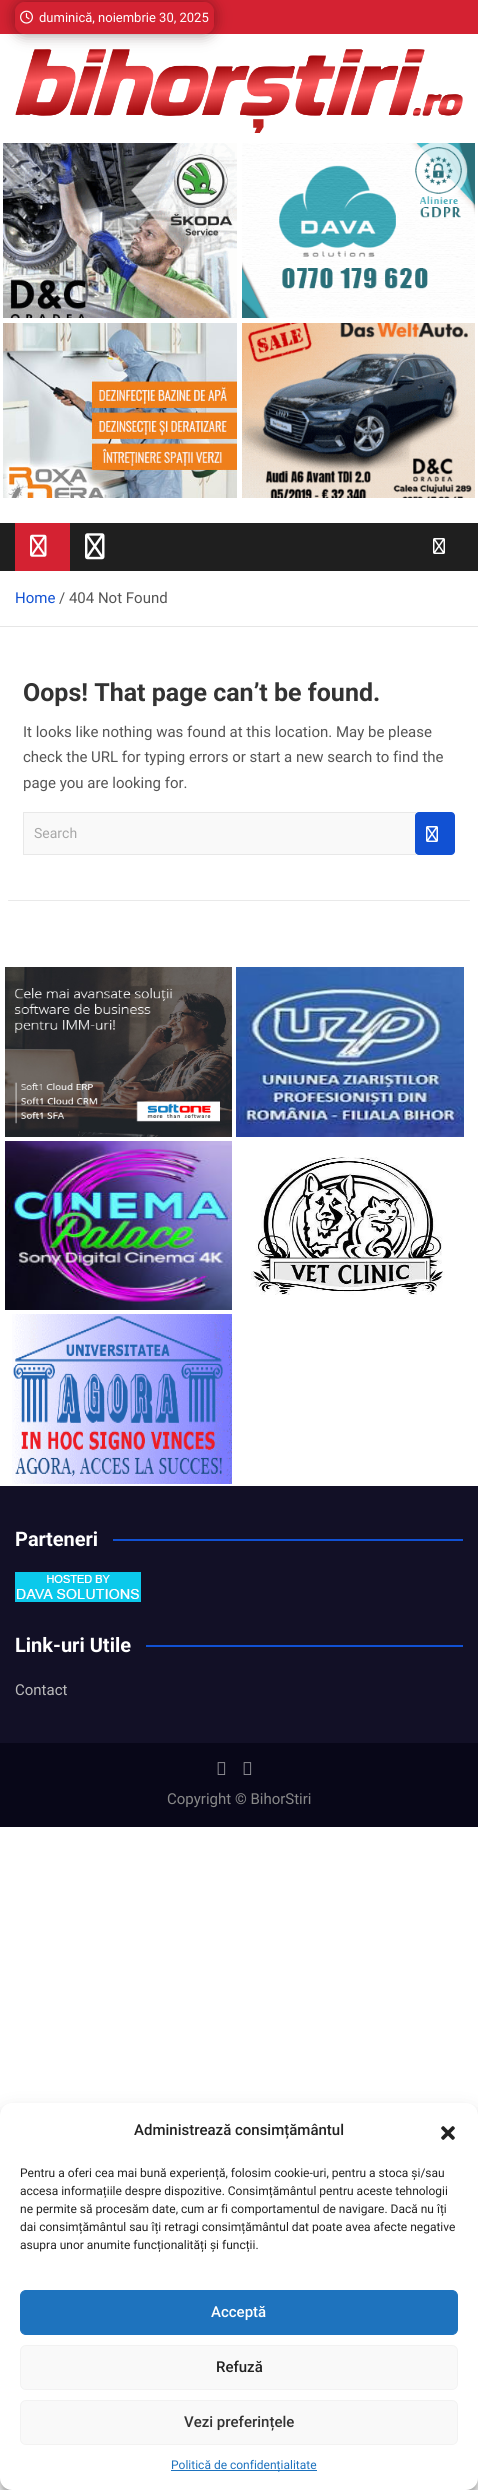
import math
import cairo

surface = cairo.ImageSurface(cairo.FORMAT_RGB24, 478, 2490)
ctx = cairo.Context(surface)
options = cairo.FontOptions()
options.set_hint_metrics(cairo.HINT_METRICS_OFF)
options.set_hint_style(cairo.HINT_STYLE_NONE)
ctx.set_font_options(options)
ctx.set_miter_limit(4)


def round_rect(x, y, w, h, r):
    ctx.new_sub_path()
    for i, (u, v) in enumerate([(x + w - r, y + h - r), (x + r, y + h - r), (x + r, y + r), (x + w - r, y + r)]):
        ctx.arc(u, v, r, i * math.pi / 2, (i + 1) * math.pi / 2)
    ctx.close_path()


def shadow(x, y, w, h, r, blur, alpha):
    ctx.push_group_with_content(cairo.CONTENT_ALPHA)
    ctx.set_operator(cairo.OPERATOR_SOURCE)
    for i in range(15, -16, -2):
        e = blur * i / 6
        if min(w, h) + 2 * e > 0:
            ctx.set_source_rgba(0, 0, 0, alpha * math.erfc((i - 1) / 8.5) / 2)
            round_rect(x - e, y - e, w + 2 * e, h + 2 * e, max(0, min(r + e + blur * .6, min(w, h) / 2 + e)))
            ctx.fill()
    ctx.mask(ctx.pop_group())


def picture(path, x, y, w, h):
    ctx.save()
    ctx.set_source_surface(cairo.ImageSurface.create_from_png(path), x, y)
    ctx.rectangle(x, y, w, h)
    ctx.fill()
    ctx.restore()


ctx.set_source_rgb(1, 1, 1)
ctx.paint()
ctx.set_source_rgb(0.831, 0.133, 0.196)
ctx.rectangle(0, 0, 478, 34)
ctx.fill()
ctx.save()
ctx.set_fill_rule(cairo.FILL_RULE_EVEN_ODD)
ctx.new_path()
ctx.move_to(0, 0)
ctx.line_to(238, 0)
ctx.line_to(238, 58)
ctx.line_to(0, 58)
ctx.close_path()
ctx.move_to(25, 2)
ctx.line_to(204, 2)
ctx.curve_to(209.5, 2, 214, 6.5, 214, 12)
ctx.line_to(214, 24)
ctx.curve_to(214, 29.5, 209.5, 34, 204, 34)
ctx.line_to(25, 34)
ctx.curve_to(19.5, 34, 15, 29.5, 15, 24)
ctx.line_to(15, 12)
ctx.curve_to(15, 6.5, 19.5, 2, 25, 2)
ctx.close_path()
ctx.clip()
ctx.set_source_rgb(0.129, 0.027, 0.027)
shadow(15, 2, 199, 32, 10, 7.5, 0.45)
ctx.restore()
picture("img1.png", 20, 10, 13, 14)
ctx.select_font_face("Roboto")
ctx.set_font_size(13)
ctx.set_source_rgb(1, 1, 1)
ctx.move_to(39, 22)
ctx.show_text("duminică, noiembrie 30, 2025")
picture("img2.png", 15, 49, 448, 84)
picture("img3.png", 3, 143, 234, 175)
picture("img4.png", 242, 143, 233, 175)
picture("img5.png", 3, 323, 234, 175)
picture("img6.png", 242, 323, 233, 175)
ctx.set_source_rgb(0.122, 0.122, 0.122)
ctx.rectangle(0, 523, 478, 48)
ctx.fill()
ctx.set_source_rgb(0.831, 0.133, 0.196)
ctx.rectangle(15, 523, 55, 48)
ctx.fill()
picture("img7.png", 30, 534, 17, 23)
picture("img8.png", 85, 533, 20, 27)
picture("img9.png", 433, 538, 12, 16)
ctx.set_source_rgb(0.902, 0.902, 0.902)
ctx.rectangle(0, 626, 478, 1)
ctx.fill()
ctx.set_font_size(15)
ctx.set_source_rgb(0.067, 0.318, 0.827)
ctx.move_to(15, 603)
ctx.show_text("Home")
ctx.set_source_rgb(0.333, 0.333, 0.333)
ctx.move_to(59, 603)
ctx.show_text("/ 404 Not Found")
ctx.save()
ctx.rectangle(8, 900, 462, 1)
ctx.clip()
ctx.set_source_rgb(0, 0, 0)
shadow(8, 663, 462, 238, 0, 0.5, 0.1)
ctx.restore()
ctx.select_font_face("Roboto", cairo.FONT_SLANT_NORMAL, cairo.FONT_WEIGHT_BOLD)
ctx.set_font_size(25)
ctx.set_source_rgb(0.2, 0.2, 0.2)
ctx.move_to(23, 701)
ctx.show_text("Oops! That page can’t be found.")
ctx.select_font_face("Roboto")
ctx.set_font_size(15)
ctx.set_source_rgb(0.333, 0.333, 0.333)
ctx.move_to(23, 737)
ctx.show_text("It looks like nothing was found at this location. May be please")
ctx.move_to(23, 762)
ctx.show_text("check the URL for typing errors or start a new search to find the")
ctx.move_to(23, 788)
ctx.show_text("page you are looking for.")
ctx.set_source_rgb(0.976, 0.976, 0.976)
ctx.rectangle(24, 813, 392, 41)
ctx.fill()
ctx.set_source_rgb(0.91, 0.91, 0.91)
ctx.new_path()
ctx.move_to(23, 812)
ctx.line_to(416, 812)
ctx.line_to(416, 813)
ctx.line_to(24, 813)
ctx.close_path()
ctx.fill()
ctx.new_path()
ctx.move_to(416, 855)
ctx.line_to(23, 855)
ctx.line_to(24, 854)
ctx.line_to(416, 854)
ctx.close_path()
ctx.fill()
ctx.set_source_rgba(0, 0, 0, 0.09)
ctx.new_path()
ctx.move_to(23, 855)
ctx.line_to(23, 812)
ctx.line_to(24, 813)
ctx.line_to(24, 854)
ctx.close_path()
ctx.fill()
ctx.set_font_size(14)
ctx.set_source_rgb(0.655, 0.655, 0.655)
ctx.move_to(34, 838)
ctx.show_text("Search")
ctx.set_source_rgb(0.067, 0.318, 0.827)
round_rect(415, 812, 40, 43, 4)
ctx.fill()
picture("img10.png", 426, 826, 12, 16)
picture("img11.png", 5, 967, 227, 170)
picture("img12.png", 236, 967, 228, 170)
picture("img13.png", 5, 1141, 227, 169)
picture("img14.png", 251, 1157, 194, 138)
picture("img15.png", 12, 1314, 220, 170)
ctx.set_source_rgb(0.071, 0.063, 0.149)
ctx.rectangle(0, 1486, 478, 257)
ctx.fill()
ctx.select_font_face("Roboto", cairo.FONT_SLANT_NORMAL, cairo.FONT_WEIGHT_BOLD)
ctx.set_font_size(20)
ctx.set_source_rgb(1, 1, 1)
ctx.move_to(15, 1546)
ctx.show_text("Parteneri")
ctx.set_source_rgb(0.067, 0.318, 0.827)
ctx.rectangle(113, 1539, 350, 2)
ctx.fill()
picture("img16.png", 15, 1572, 126, 30)
ctx.set_source_rgb(1, 1, 1)
ctx.move_to(15, 1652)
ctx.show_text("Link-uri Utile")
ctx.set_source_rgb(0.067, 0.318, 0.827)
ctx.rectangle(146, 1645, 317, 2)
ctx.fill()
ctx.select_font_face("Roboto")
ctx.set_font_size(15)
ctx.set_source_rgb(0.733, 0.733, 0.733)
ctx.move_to(15, 1695)
ctx.show_text("Contact")
ctx.set_source_rgb(0.035, 0.031, 0.094)
ctx.rectangle(0, 1743, 478, 84)
ctx.fill()
picture("img17.png", 217, 1762, 9, 13)
picture("img17.png", 243, 1762, 9, 13)
ctx.set_source_rgb(0.533, 0.533, 0.533)
ctx.move_to(167, 1804)
ctx.show_text("Copyright © BihorStiri")
ctx.set_source_rgb(0, 0, 0)
shadow(0, 2109, 478, 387, 12, 3, 0.23)
shadow(0, 2113, 478, 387, 12, 10, 0.19)
ctx.set_source_rgb(1, 1, 1)
round_rect(0, 2103, 478, 387, 12)
ctx.fill()
ctx.select_font_face("Roboto Medium")
ctx.set_source_rgb(0.133, 0.133, 0.133)
ctx.move_to(134, 2135)
ctx.show_text("Administrează consimțământul")
picture("img18.png", 441, 2126, 14, 14)
ctx.select_font_face("Roboto")
ctx.set_font_size(12)
ctx.move_to(20, 2177)
ctx.show_text("Pentru a oferi cea mai bună experiență, folosim cookie-uri, pentru a stoca și/sau")
ctx.move_to(20, 2195)
ctx.show_text("accesa informațiile despre dispozitive. Consimțământul pentru aceste tehnologii")
ctx.move_to(20, 2213)
ctx.show_text("ne permite să procesăm date, cum ar fi comportamentul de navigare. Dacă nu îți")
ctx.move_to(20, 2231)
ctx.show_text("dai consimțământul sau îți retragi consimțământul dat poate avea afecte negative")
ctx.move_to(20, 2249)
ctx.show_text("asupra unor anumite funcționalități și funcții.")
ctx.set_source_rgb(0.118, 0.451, 0.745)
round_rect(20.5, 2290.5, 437, 44, 5.5)
ctx.fill_preserve()
ctx.set_line_width(1)
ctx.stroke()
ctx.select_font_face("Roboto Medium")
ctx.set_font_size(15)
ctx.set_source_rgb(1, 1, 1)
ctx.move_to(211, 2317)
ctx.show_text("Acceptă")
ctx.set_source_rgb(0.976, 0.976, 0.976)
round_rect(20.5, 2345.5, 437, 44, 5.5)
ctx.fill_preserve()
ctx.set_source_rgb(0.949, 0.949, 0.949)
ctx.stroke()
ctx.set_source_rgb(0.133, 0.133, 0.133)
ctx.move_to(216, 2372)
ctx.show_text("Refuză")
ctx.set_source_rgb(0.976, 0.976, 0.976)
round_rect(20.5, 2400.5, 437, 44, 5.5)
ctx.fill_preserve()
ctx.set_source_rgb(0.949, 0.949, 0.949)
ctx.stroke()
ctx.set_source_rgb(0.2, 0.2, 0.2)
ctx.move_to(184, 2427)
ctx.show_text("Vezi preferințele")
ctx.set_source_rgb(0.118, 0.451, 0.745)
ctx.rectangle(171, 2470, 146, 1)
ctx.fill()
ctx.select_font_face("Roboto")
ctx.set_font_size(12)
ctx.move_to(171, 2469)
ctx.show_text("Politică de confidențialitate")
surface.write_to_png("page.png")
